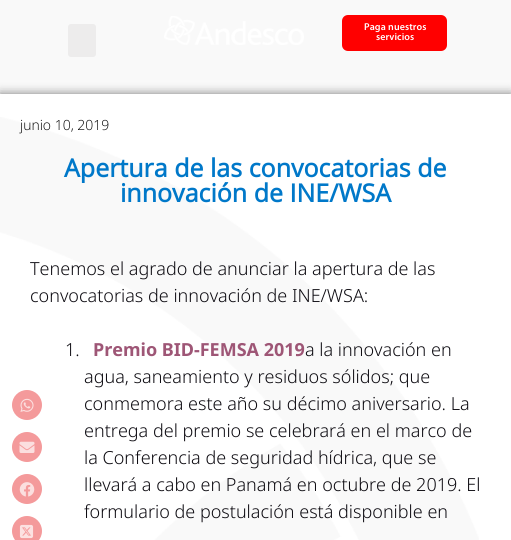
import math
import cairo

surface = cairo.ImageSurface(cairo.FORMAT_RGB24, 511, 540)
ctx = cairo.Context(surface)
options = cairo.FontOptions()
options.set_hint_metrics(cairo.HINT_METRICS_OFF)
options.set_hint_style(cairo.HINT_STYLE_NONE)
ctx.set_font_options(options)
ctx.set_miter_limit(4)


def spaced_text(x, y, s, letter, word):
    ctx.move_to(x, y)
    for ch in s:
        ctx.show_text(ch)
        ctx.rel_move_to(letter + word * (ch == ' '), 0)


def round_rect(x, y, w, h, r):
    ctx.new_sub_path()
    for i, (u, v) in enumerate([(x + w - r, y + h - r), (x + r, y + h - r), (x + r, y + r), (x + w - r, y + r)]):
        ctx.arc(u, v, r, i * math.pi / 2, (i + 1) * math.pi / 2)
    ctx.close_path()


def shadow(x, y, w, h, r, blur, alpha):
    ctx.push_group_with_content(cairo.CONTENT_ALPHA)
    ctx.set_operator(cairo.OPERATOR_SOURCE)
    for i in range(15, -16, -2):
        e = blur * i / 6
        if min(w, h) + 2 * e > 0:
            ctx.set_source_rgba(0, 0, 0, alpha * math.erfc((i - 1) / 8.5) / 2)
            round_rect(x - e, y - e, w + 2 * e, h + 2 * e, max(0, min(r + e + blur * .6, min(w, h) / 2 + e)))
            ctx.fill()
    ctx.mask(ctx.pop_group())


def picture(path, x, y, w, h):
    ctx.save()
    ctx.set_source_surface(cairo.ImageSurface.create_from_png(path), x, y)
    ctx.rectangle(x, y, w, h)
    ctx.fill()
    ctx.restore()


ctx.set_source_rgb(0.976, 0.973, 0.973)
ctx.paint()
ctx.set_source_rgb(0.929, 0.925, 0.925)
round_rect(68, 24, 28, 33, 3)
ctx.fill()
picture("img1.png", 164, 16, 140, 29)
ctx.set_source_rgb(1, 0, 0)
round_rect(342, 15, 105, 36, 6)
ctx.fill()
ctx.select_font_face("Myriad SemiBold")
ctx.set_font_size(10)
ctx.set_source_rgb(1, 1, 1)
spaced_text(364, 30, "Paga nuestros", 0.1, 0)
spaced_text(376, 40, "servicios", 0.1, 0)
ctx.set_source_rgb(0.055, 0.055, 0.055)
shadow(0, 94, 511, 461, 0, 5, 0.56)
ctx.set_source_rgb(1, 1, 1)
ctx.rectangle(0, 94, 511, 446)
ctx.fill()
picture("img6.png", 0, 117, 479, 423)
ctx.set_source_rgb(0.957, 0.604, 0.608)
ctx.arc(27, 405, 15, 0, 2 * math.pi)
ctx.fill()
picture("img2.png", 20, 398, 14, 14)
ctx.arc(27, 447, 15, 0, 2 * math.pi)
ctx.fill()
picture("img3.png", 19, 441, 16, 12)
ctx.arc(27, 489, 15, 0, 2 * math.pi)
ctx.fill()
picture("img4.png", 19, 482, 16, 15)
ctx.arc(27, 531, 15, 0, 2 * math.pi)
ctx.fill()
picture("img5.png", 19, 524, 15, 15)
ctx.select_font_face("Open Sans Light")
ctx.set_font_size(14)
ctx.set_source_rgb(0, 0, 0)
ctx.move_to(20, 130)
ctx.show_text("junio 10, 2019")
ctx.select_font_face("Open Sans", cairo.FONT_SLANT_NORMAL, cairo.FONT_WEIGHT_BOLD)
ctx.set_font_size(25)
ctx.set_source_rgb(0, 0.471, 0.788)
ctx.move_to(64, 177)
ctx.show_text("Apertura de las convocatorias de")
ctx.move_to(120, 202)
ctx.show_text("innovación de INE/WSA")
ctx.select_font_face("Noto Sans Light")
ctx.set_font_size(18)
ctx.set_source_rgb(0.055, 0.047, 0.071)
ctx.move_to(30, 275)
ctx.show_text("Tenemos el agrado de anunciar la apertura de las")
ctx.move_to(30, 302)
ctx.show_text("convocatorias de innovación de INE/WSA:")
ctx.move_to(65, 356)
ctx.show_text("1.")
ctx.select_font_face("Noto Sans", cairo.FONT_SLANT_NORMAL, cairo.FONT_WEIGHT_BOLD)
ctx.set_source_rgb(0.62, 0.337, 0.463)
ctx.move_to(93, 356)
ctx.show_text("Premio BID-FEMSA 2019")
ctx.select_font_face("Noto Sans Light")
ctx.set_source_rgb(0.055, 0.047, 0.071)
ctx.move_to(305, 356)
ctx.show_text("a la innovación en")
ctx.move_to(84, 383)
ctx.show_text("agua, saneamiento y residuos sólidos; que")
ctx.move_to(84, 410)
ctx.show_text("conmemora este año su décimo aniversario. La")
ctx.move_to(84, 437)
ctx.show_text("entrega del premio se celebrará en el marco de")
ctx.move_to(84, 464)
ctx.show_text("la Conferencia de seguridad hídrica, que se")
ctx.move_to(84, 491)
ctx.show_text("llevará a cabo en Panamá en octubre de 2019. El")
ctx.move_to(84, 518)
ctx.show_text("formulario de postulación está disponible en")
surface.write_to_png("page.png")
